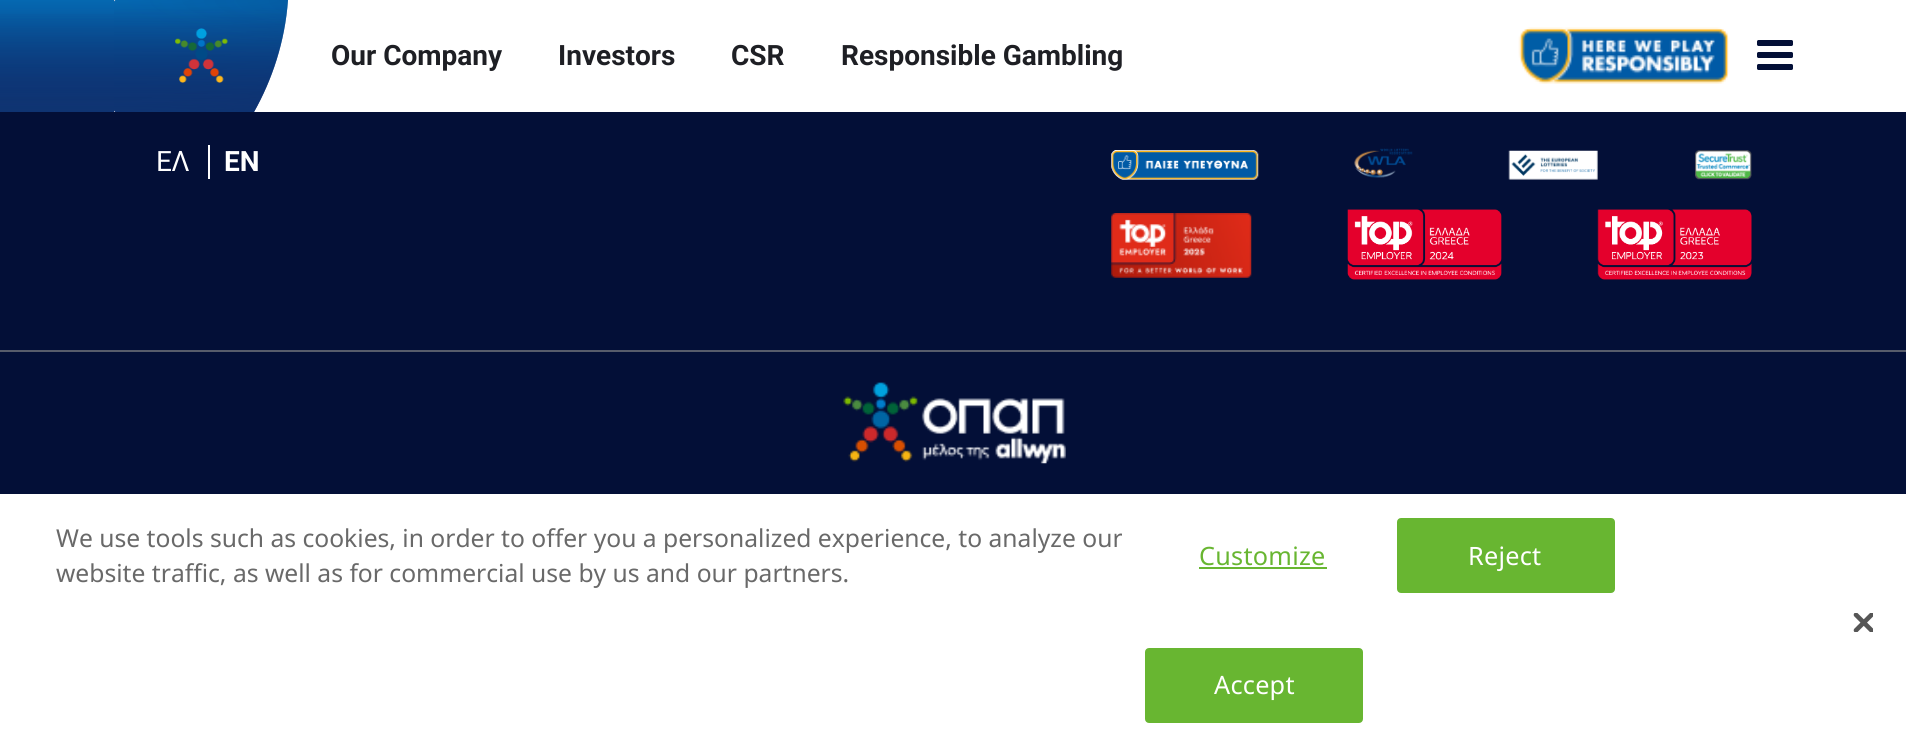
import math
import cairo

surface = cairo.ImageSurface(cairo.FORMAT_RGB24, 1906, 750)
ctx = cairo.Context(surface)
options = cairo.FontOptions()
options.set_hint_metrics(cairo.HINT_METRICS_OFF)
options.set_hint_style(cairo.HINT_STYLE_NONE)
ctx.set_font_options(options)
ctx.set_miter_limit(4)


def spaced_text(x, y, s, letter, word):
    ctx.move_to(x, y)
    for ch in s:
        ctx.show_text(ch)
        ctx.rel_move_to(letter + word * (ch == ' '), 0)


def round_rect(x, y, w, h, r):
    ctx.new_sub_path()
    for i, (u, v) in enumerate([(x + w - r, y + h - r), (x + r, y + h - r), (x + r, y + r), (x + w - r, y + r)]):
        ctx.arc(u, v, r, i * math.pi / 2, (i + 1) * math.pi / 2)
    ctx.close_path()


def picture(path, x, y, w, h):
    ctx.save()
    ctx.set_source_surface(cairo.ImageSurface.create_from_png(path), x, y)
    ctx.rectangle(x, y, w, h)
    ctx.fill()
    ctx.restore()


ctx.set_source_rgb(0.012, 0.059, 0.216)
ctx.paint()
ctx.set_source_rgb(1, 1, 1)
ctx.rectangle(114, 0, 1792, 112)
ctx.fill()
gradient = cairo.RadialGradient(0, 0, 0, 0, 0, 1)
gradient.set_matrix(cairo.Matrix(1 / 19075, 0, 0, 1 / 112, -1 * 0 / 19075, -1 * 0 / 112))
gradient.add_color_stop_rgba(0, 0.02, 0.408, 0.694, 1)
gradient.add_color_stop_rgba(1, 0.039, 0.122, 0.384, 1)
ctx.set_source(gradient)
ctx.rectangle(0, 0, 114, 112)
ctx.fill()
gradient = cairo.RadialGradient(0, 0, 0, 0, 0, 1)
gradient.set_matrix(cairo.Matrix(1 / 17950, 0, 0, 1 / 105, -1 * 0 / 17950, -1 * 112 / 105))
gradient.add_color_stop_rgba(0, 0.063, 0.224, 0.463, 0.8)
gradient.add_color_stop_rgba(1, 0.063, 0.224, 0.463, 0)
ctx.set_source(gradient)
ctx.rectangle(0, 14, 114, 98)
ctx.fill()
ctx.set_source_rgb(0.039, 0.122, 0.384)
ctx.new_path()
ctx.move_to(116, 0)
ctx.line_to(288, 0)
ctx.curve_to(285, 42, 272, 80, 254, 112)
ctx.line_to(116, 112)
ctx.curve_to(115, 112, 114, 111, 114, 110)
ctx.line_to(114, 2)
ctx.curve_to(114, 1, 115, 0, 116, 0)
ctx.close_path()
ctx.fill()
gradient = cairo.RadialGradient(0, 0, 0, 0, 0, 1)
gradient.set_matrix(cairo.Matrix(1 / 1908, 0, 0, 1 / 112, -1 * 114 / 1908, -1 * 0 / 112))
gradient.add_color_stop_rgba(0, 0, 0.69, 1, 0.5)
gradient.add_color_stop_rgba(1, 0, 0.69, 1, 0)
ctx.set_source(gradient)
ctx.new_path()
ctx.move_to(116, 0)
ctx.line_to(288, 0)
ctx.curve_to(285, 42, 272, 80, 254, 112)
ctx.line_to(116, 112)
ctx.curve_to(115, 112, 114, 111, 114, 110)
ctx.line_to(114, 2)
ctx.curve_to(114, 1, 115, 0, 116, 0)
ctx.close_path()
ctx.fill()
gradient = cairo.RadialGradient(0, 0, 0, 0, 0, 1)
gradient.set_matrix(cairo.Matrix(1 / 1908, 0, 0, 1 / 112, -1 * 2021 / 1908, -1 * 0 / 112))
gradient.add_color_stop_rgba(0, 0.008, 0.133, 0.333, 0.7)
gradient.add_color_stop_rgba(1, 0.008, 0.133, 0.333, 0)
ctx.set_source(gradient)
ctx.new_path()
ctx.move_to(116, 0)
ctx.line_to(288, 0)
ctx.curve_to(285, 42, 272, 80, 254, 112)
ctx.line_to(116, 112)
ctx.curve_to(115, 112, 114, 111, 114, 110)
ctx.line_to(114, 2)
ctx.curve_to(114, 1, 115, 0, 116, 0)
ctx.close_path()
ctx.fill()
gradient = cairo.RadialGradient(0, 0, 0, 0, 0, 1)
gradient.set_matrix(cairo.Matrix(1 / 1795, 0, 0, 1 / 105, -1 * 114 / 1795, -1 * 112 / 105))
gradient.add_color_stop_rgba(0, 0.063, 0.224, 0.463, 0.8)
gradient.add_color_stop_rgba(1, 0.063, 0.224, 0.463, 0)
ctx.set_source(gradient)
ctx.new_path()
ctx.move_to(116, 0)
ctx.line_to(288, 0)
ctx.curve_to(285, 42, 272, 80, 254, 112)
ctx.line_to(116, 112)
ctx.curve_to(115, 112, 114, 111, 114, 110)
ctx.line_to(114, 2)
ctx.curve_to(114, 1, 115, 0, 116, 0)
ctx.close_path()
ctx.fill()
picture("img1.png", 175, 28, 53, 55)
ctx.select_font_face("Roboto", cairo.FONT_SLANT_NORMAL, cairo.FONT_WEIGHT_BOLD)
ctx.set_font_size(28)
ctx.set_source_rgb(0.118, 0.122, 0.141)
ctx.move_to(331, 65)
ctx.show_text("Our Company")
ctx.move_to(558, 65)
ctx.show_text("Investors")
ctx.move_to(731, 65)
ctx.show_text("CSR")
ctx.move_to(841, 65)
ctx.show_text("Responsible Gambling")
picture("img2.png", 1518, 27, 212, 57)
picture("img3.png", 1757, 40, 36, 30)
ctx.select_font_face("Roboto Flex")
ctx.set_source_rgb(1, 1, 1)
ctx.move_to(156, 171)
ctx.show_text("ΕΛ")
ctx.select_font_face("Roboto", cairo.FONT_SLANT_NORMAL, cairo.FONT_WEIGHT_BOLD)
ctx.move_to(224, 171)
ctx.show_text("EN")
ctx.set_source_rgb(0.992, 0.992, 0.992)
ctx.rectangle(208, 145, 2, 34)
ctx.fill()
picture("img4.png", 1111, 150, 148, 30)
picture("img5.png", 1354, 148, 59, 30)
picture("img6.png", 1508, 150, 90, 30)
picture("img7.png", 1695, 150, 57, 30)
picture("img8.png", 1111, 213, 141, 65)
picture("img9.png", 1347, 209, 155, 71)
picture("img10.png", 1597, 209, 155, 71)
ctx.set_source_rgb(0.341, 0.361, 0.42)
ctx.rectangle(0, 350, 1906, 2)
ctx.fill()
picture("img11.png", 843, 382, 223, 82)
ctx.set_source_rgb(1, 1, 1)
ctx.rectangle(0, 494, 1906, 256)
ctx.fill()
ctx.select_font_face("Noto Sans")
ctx.set_font_size(24.65)
ctx.set_source_rgb(0.412, 0.412, 0.412)
ctx.move_to(56, 547)
ctx.show_text("We use tools such as cookies, in order to offer you a personalized experience, to analyze our")
ctx.move_to(56, 582)
ctx.show_text("website traffic, as well as for commercial use by us and our partners.")
ctx.set_font_size(25.25)
ctx.set_source_rgb(0.408, 0.714, 0.192)
spaced_text(1199, 565, "Customize", 0.25, 0)
ctx.rectangle(1199, 567, 128, 2)
ctx.fill()
round_rect(1398, 519, 216, 73, 3)
ctx.fill_preserve()
ctx.stroke()
ctx.set_source_rgb(1, 1, 1)
spaced_text(1468, 565, "Reject", 0.25, 0)
ctx.set_source_rgb(0.408, 0.714, 0.192)
round_rect(1146, 649, 216, 73, 3)
ctx.fill_preserve()
ctx.stroke()
ctx.set_source_rgb(1, 1, 1)
spaced_text(1214, 694, "Accept", 0.25, 0)
picture("img12.png", 1853, 613, 20, 19)
surface.write_to_png("page.png")
